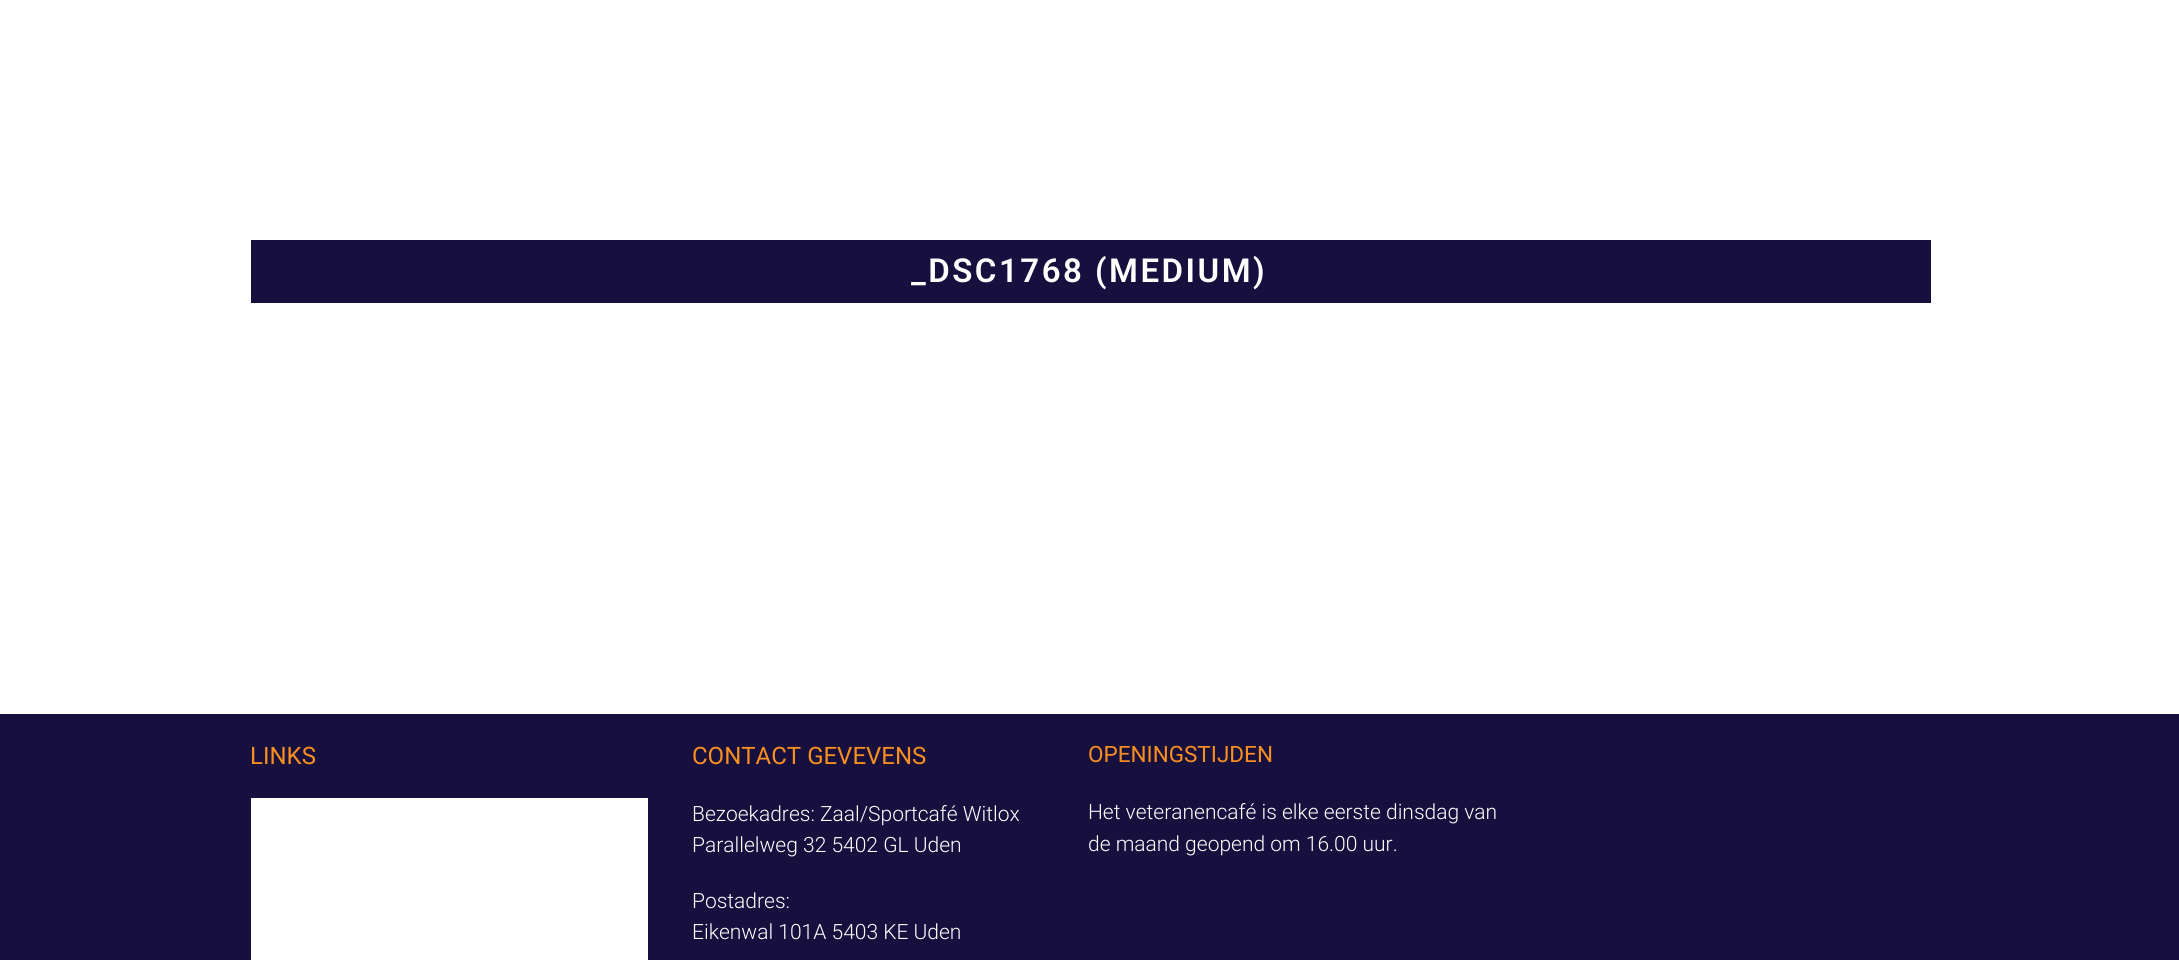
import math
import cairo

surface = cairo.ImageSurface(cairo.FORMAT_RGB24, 2179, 960)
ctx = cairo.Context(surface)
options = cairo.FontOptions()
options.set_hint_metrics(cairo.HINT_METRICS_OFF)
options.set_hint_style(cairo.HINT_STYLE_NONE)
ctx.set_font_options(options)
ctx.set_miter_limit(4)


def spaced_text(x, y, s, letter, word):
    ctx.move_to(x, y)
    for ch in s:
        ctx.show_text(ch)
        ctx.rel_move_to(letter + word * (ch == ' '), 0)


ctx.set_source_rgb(1, 1, 1)
ctx.paint()
ctx.set_source_rgb(0.09, 0.059, 0.243)
ctx.rectangle(251, 240, 1680, 63)
ctx.fill()
ctx.select_font_face("Roboto SemiBold")
ctx.set_font_size(33)
ctx.set_source_rgb(1, 1, 1)
spaced_text(911, 282, "_DSC1768 (MEDIUM)", 2.5, 0)
ctx.set_source_rgb(0.09, 0.059, 0.243)
ctx.rectangle(0, 714, 2179, 246)
ctx.fill()
ctx.select_font_face("Roboto")
ctx.set_font_size(24)
ctx.set_source_rgb(0.969, 0.561, 0.118)
ctx.move_to(250, 764)
ctx.show_text("LINKS")
ctx.set_source_rgb(1, 1, 1)
ctx.rectangle(251, 798, 397, 162)
ctx.fill()
ctx.set_source_rgb(0.969, 0.561, 0.118)
ctx.move_to(692, 764)
ctx.show_text("CONTACT GEVEVENS")
ctx.select_font_face("Roboto Light")
ctx.set_font_size(21)
ctx.set_source_rgb(1, 1, 1)
ctx.move_to(692, 821)
ctx.show_text("Bezoekadres: Zaal/Sportcafé Witlox")
ctx.move_to(692, 852)
ctx.show_text("Parallelweg 32 5402 GL Uden")
ctx.move_to(692, 908)
ctx.show_text("Postadres:")
ctx.move_to(692, 939)
ctx.show_text("Eikenwal 101A 5403 KE Uden")
ctx.select_font_face("Roboto")
ctx.set_font_size(22.5)
ctx.set_source_rgb(0.969, 0.561, 0.118)
ctx.move_to(1088, 762)
ctx.show_text("OPENINGSTIJDEN")
ctx.select_font_face("Roboto Light")
ctx.set_font_size(21)
ctx.set_source_rgb(1, 1, 1)
ctx.move_to(1088, 819)
ctx.show_text("Het veteranencafé is elke eerste dinsdag van")
ctx.move_to(1088, 851)
ctx.show_text("de maand geopend om 16.00 uur.")
surface.write_to_png("page.png")
